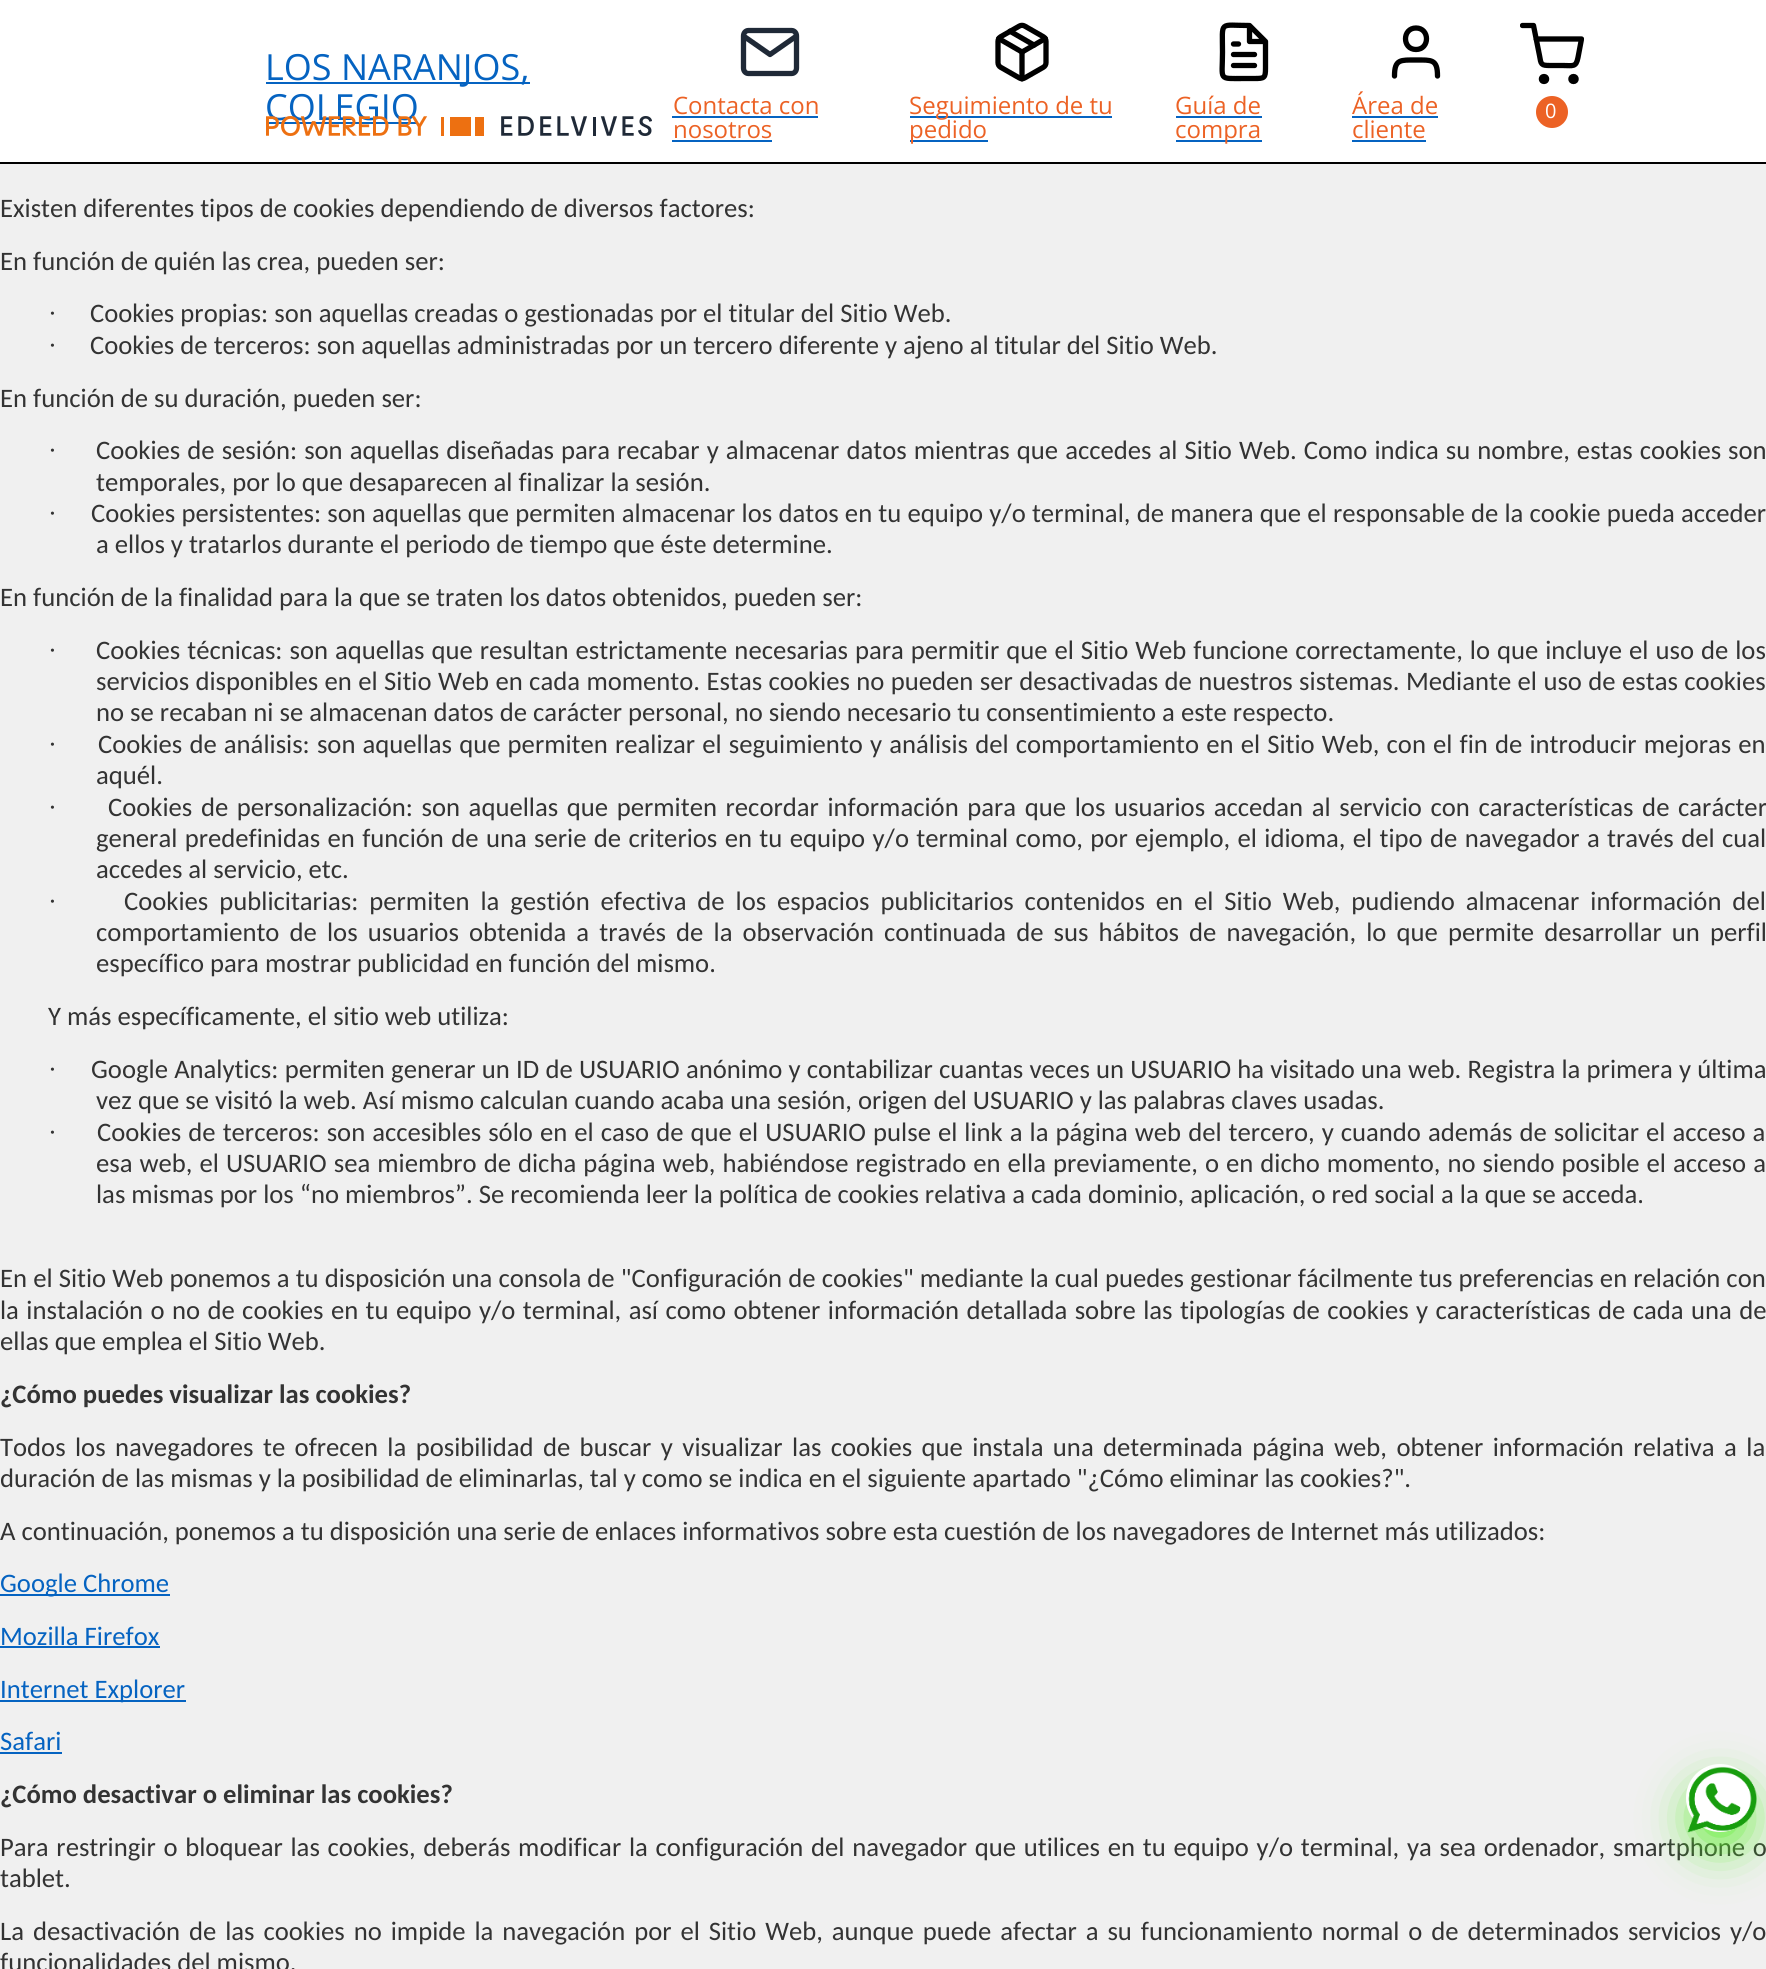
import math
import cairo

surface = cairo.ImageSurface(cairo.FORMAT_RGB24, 1766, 1969)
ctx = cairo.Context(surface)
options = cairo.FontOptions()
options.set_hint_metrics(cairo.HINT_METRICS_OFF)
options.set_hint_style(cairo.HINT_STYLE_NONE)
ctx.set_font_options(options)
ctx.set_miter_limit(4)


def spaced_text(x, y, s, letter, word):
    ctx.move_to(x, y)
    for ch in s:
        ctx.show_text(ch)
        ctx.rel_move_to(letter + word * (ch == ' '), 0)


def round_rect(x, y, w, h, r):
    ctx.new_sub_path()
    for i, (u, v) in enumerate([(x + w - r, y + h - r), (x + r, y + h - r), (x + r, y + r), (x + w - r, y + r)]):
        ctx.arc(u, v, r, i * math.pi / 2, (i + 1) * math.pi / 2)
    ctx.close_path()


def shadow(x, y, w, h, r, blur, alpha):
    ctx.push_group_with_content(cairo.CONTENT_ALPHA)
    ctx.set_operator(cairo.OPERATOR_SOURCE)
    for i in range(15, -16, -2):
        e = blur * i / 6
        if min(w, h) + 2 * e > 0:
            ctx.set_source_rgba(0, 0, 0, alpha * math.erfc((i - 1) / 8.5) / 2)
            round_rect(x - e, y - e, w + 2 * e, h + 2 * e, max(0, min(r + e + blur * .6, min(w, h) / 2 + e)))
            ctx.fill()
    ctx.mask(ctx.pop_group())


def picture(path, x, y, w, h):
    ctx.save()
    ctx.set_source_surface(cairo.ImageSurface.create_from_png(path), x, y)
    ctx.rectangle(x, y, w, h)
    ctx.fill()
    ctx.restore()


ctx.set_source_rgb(0.941, 0.941, 0.941)
ctx.paint()
ctx.set_source_rgb(1, 1, 1)
ctx.rectangle(0, 0, 1766, 162)
ctx.fill()
ctx.set_source_rgb(0, 0, 0)
ctx.rectangle(0, 162, 1766, 2)
ctx.fill()
ctx.set_source_rgb(0.02, 0.388, 0.757)
ctx.rectangle(266, 82, 264, 2)
ctx.fill()
ctx.select_font_face("Open Sans")
ctx.set_font_size(36)
ctx.move_to(265, 80)
ctx.show_text("LOS NARANJOS,")
ctx.move_to(265, 120)
ctx.show_text("COLEGIO")
ctx.rectangle(266, 122, 152, 2)
ctx.fill()
picture("img1.png", 266, 116, 386, 20)
ctx.new_path()
ctx.move_to(748.5, 30.5)
ctx.line_to(791.5, 30.5)
ctx.curve_to(794.5, 30.5, 796.5, 33, 796.5, 36)
ctx.line_to(796.5, 68)
ctx.curve_to(796.5, 71, 794.5, 73.5, 791.5, 73.5)
ctx.line_to(748.5, 73.5)
ctx.curve_to(745.5, 73.5, 743.5, 71, 743.5, 68)
ctx.line_to(743.5, 36)
ctx.curve_to(743.5, 33, 745.5, 30.5, 748.5, 30.5)
ctx.close_path()
ctx.move_to(796.5, 36)
ctx.line_to(770, 54.5)
ctx.line_to(743.5, 36)
ctx.set_source_rgb(0.122, 0.161, 0.216)
ctx.set_line_width(5.3)
ctx.set_line_cap(cairo.LINE_CAP_ROUND)
ctx.set_line_join(cairo.LINE_JOIN_ROUND)
ctx.stroke()
ctx.set_font_size(24)
ctx.set_source_rgb(0.922, 0.384, 0.145)
ctx.move_to(673, 114)
ctx.show_text("Contacta con")
ctx.set_source_rgb(0.02, 0.388, 0.757)
ctx.rectangle(672, 116, 146, 2)
ctx.fill()
ctx.set_source_rgb(0.922, 0.384, 0.145)
ctx.move_to(673, 138)
ctx.show_text("nosotros")
ctx.set_source_rgb(0.02, 0.388, 0.757)
ctx.rectangle(672, 140, 100, 2)
ctx.fill()
picture("img2.png", 995, 22, 54, 60)
ctx.rectangle(910, 116, 202, 2)
ctx.fill()
ctx.set_source_rgb(0.922, 0.384, 0.145)
ctx.move_to(909, 114)
ctx.show_text("Seguimiento de tu")
ctx.set_source_rgb(0.02, 0.388, 0.757)
ctx.rectangle(910, 140, 78, 2)
ctx.fill()
ctx.set_source_rgb(0.922, 0.384, 0.145)
ctx.move_to(909, 138)
ctx.show_text("pedido")
ctx.new_path()
ctx.move_to(1249.5, 25.5)
ctx.curve_to(1218.5, 25.5, 1222.5, 20, 1222.5, 52)
ctx.curve_to(1222.5, 81, 1217.5, 78.5, 1244, 78.5)
ctx.line_to(1254.5, 78.5)
ctx.curve_to(1264.5, 78.5, 1265.5, 78, 1265.5, 68)
ctx.line_to(1265.5, 41.5)
ctx.close_path()
ctx.move_to(1249.5, 25.5)
ctx.line_to(1249.5, 41.5)
ctx.line_to(1265.5, 41.5)
ctx.move_to(1254.5, 54.5)
ctx.line_to(1233.5, 54.5)
ctx.move_to(1254.5, 65.5)
ctx.line_to(1233.5, 65.5)
ctx.move_to(1238.5, 44)
ctx.line_to(1233.5, 44)
ctx.set_source_rgb(0, 0, 0)
ctx.stroke()
ctx.set_source_rgb(0.922, 0.384, 0.145)
ctx.move_to(1175, 114)
ctx.show_text("Guía de")
ctx.set_source_rgb(0.02, 0.388, 0.757)
ctx.rectangle(1176, 116, 86, 2)
ctx.fill()
ctx.rectangle(1176, 140, 86, 2)
ctx.fill()
ctx.set_source_rgb(0.922, 0.384, 0.145)
ctx.move_to(1175, 138)
ctx.show_text("compra")
ctx.new_path()
ctx.move_to(1437.5, 76)
ctx.curve_to(1437.5, 59, 1431.5, 60, 1416, 60)
ctx.curve_to(1400.5, 60, 1394.5, 59, 1394.5, 76)
ctx.move_to(1416, 49.5)
ctx.curve_to(1430, 49.5, 1430, 28, 1416, 28)
ctx.curve_to(1402, 28, 1402, 49.5, 1416, 49.5)
ctx.close_path()
ctx.set_source_rgb(0, 0, 0)
ctx.stroke()
ctx.set_source_rgb(0.922, 0.384, 0.145)
ctx.move_to(1352, 114)
ctx.show_text("Área de")
ctx.move_to(1352, 138)
ctx.show_text("cliente")
ctx.set_source_rgb(0.02, 0.388, 0.757)
ctx.rectangle(1352, 116, 86, 2)
ctx.fill()
ctx.rectangle(1352, 140, 74, 2)
ctx.fill()
ctx.new_path()
ctx.move_to(1544, 81.5)
ctx.curve_to(1547.5, 81.5, 1547.5, 76.5, 1544, 76.5)
ctx.curve_to(1540.5, 76.5, 1540.5, 81.5, 1544, 81.5)
ctx.close_path()
ctx.move_to(1573.5, 81.5)
ctx.curve_to(1577, 81.5, 1577, 76.5, 1573.5, 76.5)
ctx.curve_to(1570, 76.5, 1570, 81.5, 1573.5, 81.5)
ctx.close_path()
ctx.set_source_rgb(0, 0, 0)
ctx.stroke()
ctx.save()
ctx.rectangle(1520, 20, 64, 70)
ctx.clip()
ctx.new_path()
ctx.move_to(1522.5, 25.5)
ctx.line_to(1533.5, 25.5)
ctx.line_to(1539.5, 55.5)
ctx.curve_to(1541, 64.5, 1541, 65.5, 1550, 65.5)
ctx.line_to(1563, 65.5)
ctx.curve_to(1573, 65.5, 1576, 67.5, 1578, 57.5)
ctx.line_to(1581.5, 39)
ctx.line_to(1536, 39)
ctx.stroke()
ctx.restore()
ctx.set_source_rgb(0.922, 0.384, 0.145)
ctx.arc(1552, 112, 16, 0, 2 * math.pi)
ctx.fill()
ctx.set_font_size(20)
ctx.set_source_rgb(1, 1, 1)
ctx.move_to(1545, 118)
ctx.show_text("0")
ctx.select_font_face("Carlito")
ctx.set_font_size(26.67)
ctx.set_source_rgb(0.2, 0.2, 0.2)
ctx.move_to(0, 217)
ctx.show_text("Existen diferentes tipos de cookies dependiendo de diversos factores:")
ctx.move_to(0, 270)
ctx.show_text("En función de quién las crea, pueden ser:")
ctx.select_font_face("Liberation Serif")
ctx.move_to(48, 322)
ctx.show_text("·")
ctx.select_font_face("Carlito")
ctx.move_to(90, 322)
ctx.show_text("Cookies propias: son aquellas creadas o gestionadas por el titular del Sitio Web.")
ctx.select_font_face("Liberation Serif")
ctx.move_to(48, 354)
ctx.show_text("·")
ctx.select_font_face("Carlito")
ctx.move_to(90, 354)
ctx.show_text("Cookies de terceros: son aquellas administradas por un tercero diferente y ajeno al titular del Sitio Web.")
ctx.move_to(0, 407)
ctx.show_text("En función de su duración, pueden ser:")
ctx.select_font_face("Liberation Serif")
ctx.move_to(48, 459)
ctx.show_text("·")
ctx.select_font_face("Carlito")
spaced_text(96, 459, "Cookies de sesión: son aquellas diseñadas para recabar y almacenar datos mientras que accedes al Sitio Web. Como indica su nombre, estas cookies son", 0, 1)
ctx.move_to(96, 491)
ctx.show_text("temporales, por lo que desaparecen al finalizar la sesión.")
ctx.select_font_face("Liberation Serif")
ctx.move_to(48, 522)
ctx.show_text("·")
ctx.select_font_face("Carlito")
spaced_text(91, 522, "Cookies persistentes: son aquellas que permiten almacenar los datos en tu equipo y/o terminal, de manera que el responsable de la cookie pueda acceder", 0, 0.2)
ctx.move_to(96, 553)
ctx.show_text("a ellos y tratarlos durante el periodo de tiempo que éste determine.")
ctx.move_to(0, 606)
ctx.show_text("En función de la finalidad para la que se traten los datos obtenidos, pueden ser:")
ctx.select_font_face("Liberation Serif")
ctx.move_to(48, 659)
ctx.show_text("·")
ctx.select_font_face("Carlito")
spaced_text(96, 659, "Cookies técnicas: son aquellas que resultan estrictamente necesarias para permitir que el Sitio Web funcione correctamente, lo que incluye el uso de los", 0, 0.95)
spaced_text(96, 690, "servicios disponibles en el Sitio Web en cada momento. Estas cookies no pueden ser desactivadas de nuestros sistemas. Mediante el uso de estas cookies", 0, 0.4)
ctx.move_to(96, 721)
ctx.show_text("no se recaban ni se almacenan datos de carácter personal, no siendo necesario tu consentimiento a este respecto.")
ctx.select_font_face("Liberation Serif")
ctx.move_to(48, 753)
ctx.show_text("·")
ctx.select_font_face("Carlito")
spaced_text(98, 753, "Cookies de análisis: son aquellas que permiten realizar el seguimiento y análisis del comportamiento en el Sitio Web, con el fin de introducir mejoras en", 0, 1.1)
ctx.move_to(96, 784)
ctx.show_text("aquél.")
ctx.select_font_face("Liberation Serif")
ctx.move_to(48, 816)
ctx.show_text("·")
ctx.select_font_face("Carlito")
spaced_text(108, 816, "Cookies de personalización: son aquellas que permiten recordar información para que los usuarios accedan al servicio con características de carácter", 0, 2.6)
spaced_text(96, 847, "general predefinidas en función de una serie de criterios en tu equipo y/o terminal como, por ejemplo, el idioma, el tipo de navegador a través del cual", 0, 1.35)
ctx.move_to(96, 878)
ctx.show_text("accedes al servicio, etc.")
ctx.select_font_face("Liberation Serif")
ctx.move_to(48, 910)
ctx.show_text("·")
ctx.select_font_face("Carlito")
spaced_text(124, 910, "Cookies publicitarias: permiten la gestión efectiva de los espacios publicitarios contenidos en el Sitio Web, pudiendo almacenar información del", 0, 4.9)
spaced_text(96, 941, "comportamiento de los usuarios obtenida a través de la observación continuada de sus hábitos de navegación, lo que permite desarrollar un perfil", 0, 4.1)
ctx.move_to(96, 972)
ctx.show_text("específico para mostrar publicidad en función del mismo.")
ctx.move_to(48, 1025)
ctx.show_text("Y más específicamente, el sitio web utiliza:")
ctx.select_font_face("Liberation Serif")
ctx.move_to(48, 1078)
ctx.show_text("·")
ctx.select_font_face("Carlito")
spaced_text(91, 1078, "Google Analytics: permiten generar un ID de USUARIO anónimo y contabilizar cuantas veces un USUARIO ha visitado una web. Registra la primera y última", 0, 0.2)
ctx.move_to(96, 1109)
ctx.show_text("vez que se visitó la web. Así mismo calculan cuando acaba una sesión, origen del USUARIO y las palabras claves usadas.")
ctx.select_font_face("Liberation Serif")
ctx.move_to(48, 1141)
ctx.show_text("·")
ctx.select_font_face("Carlito")
spaced_text(97, 1141, "Cookies de terceros: son accesibles sólo en el caso de que el USUARIO pulse el link a la página web del tercero, y cuando además de solicitar el acceso a", 0, 1)
spaced_text(96, 1172, "esa web, el USUARIO sea miembro de dicha página web, habiéndose registrado en ella previamente, o en dicho momento, no siendo posible el acceso a", 0, 1)
ctx.move_to(96, 1203)
ctx.show_text("las mismas por los “no miembros”. Se recomienda leer la política de cookies relativa a cada dominio, aplicación, o red social a la que se acceda.")
spaced_text(0, 1287, "En el Sitio Web ponemos a tu disposición una consola de \"Configuración de cookies\" mediante la cual puedes gestionar fácilmente tus preferencias en relación con", 0, 0.1)
spaced_text(0, 1319, "la instalación o no de cookies en tu equipo y/o terminal, así como obtener información detallada sobre las tipologías de cookies y características de cada una de", 0, 1.4)
ctx.move_to(0, 1350)
ctx.show_text("ellas que emplea el Sitio Web.")
ctx.select_font_face("Carlito", cairo.FONT_SLANT_NORMAL, cairo.FONT_WEIGHT_BOLD)
ctx.move_to(0, 1403)
ctx.show_text("¿Cómo puedes visualizar las cookies?")
ctx.select_font_face("Carlito")
spaced_text(0, 1456, "Todos los navegadores te ofrecen la posibilidad de buscar y visualizar las cookies que instala una determinada página web, obtener información relativa a la", 0, 3.4)
ctx.move_to(0, 1487)
ctx.show_text("duración de las mismas y la posibilidad de eliminarlas, tal y como se indica en el siguiente apartado \"¿Cómo eliminar las cookies?\".")
ctx.move_to(0, 1540)
ctx.show_text("A continuación, ponemos a tu disposición una serie de enlaces informativos sobre esta cuestión de los navegadores de Internet más utilizados:")
ctx.set_source_rgb(0.02, 0.388, 0.757)
ctx.rectangle(0, 1594, 170, 2)
ctx.fill()
ctx.move_to(0, 1592)
ctx.show_text("Google Chrome")
ctx.move_to(0, 1645)
ctx.show_text("Mozilla Firefox")
ctx.rectangle(0, 1646, 160, 2)
ctx.fill()
ctx.rectangle(0, 1700, 186, 2)
ctx.fill()
ctx.move_to(0, 1698)
ctx.show_text("Internet Explorer")
ctx.move_to(0, 1750)
ctx.show_text("Safari")
ctx.rectangle(0, 1752, 62, 2)
ctx.fill()
ctx.select_font_face("Carlito", cairo.FONT_SLANT_NORMAL, cairo.FONT_WEIGHT_BOLD)
ctx.set_source_rgb(0.2, 0.2, 0.2)
ctx.move_to(0, 1803)
ctx.show_text("¿Cómo desactivar o eliminar las cookies?")
ctx.select_font_face("Carlito")
spaced_text(0, 1856, "Para restringir o bloquear las cookies, deberás modificar la configuración del navegador que utilices en tu equipo y/o terminal, ya sea ordenador, smartphone o", 0, 1.7)
ctx.move_to(0, 1887)
ctx.show_text("tablet.")
spaced_text(0, 1940, "La desactivación de las cookies no impide la navegación por el Sitio Web, aunque puede afectar a su funcionamiento normal o de determinados servicios y/o", 0, 2.9)
ctx.move_to(0, 1971)
ctx.show_text("funcionalidades del mismo.")
ctx.set_source_rgb(0.361, 0.941, 0.173)
shadow(1696, 1794, 48, 48, 24, 25, 1)
ctx.set_source_rgb(1, 1, 1)
ctx.arc(1720, 1798, 34, 0, 2 * math.pi)
ctx.fill()
picture("img3.png", 1687, 1766, 70, 67)
surface.write_to_png("page.png")
